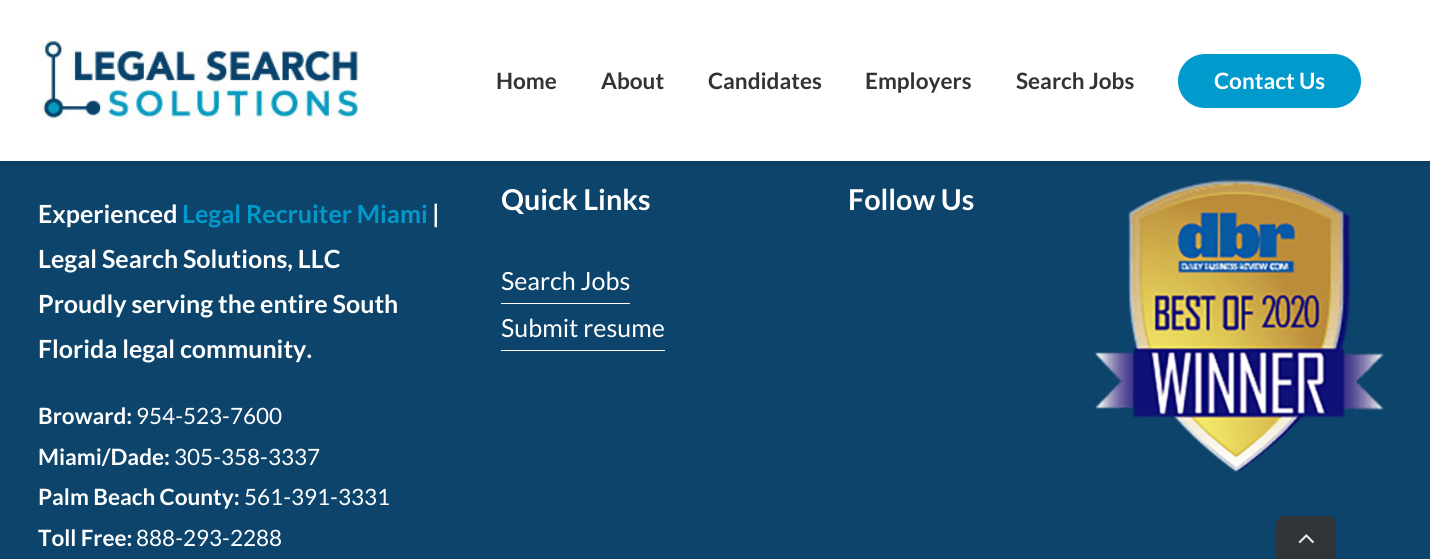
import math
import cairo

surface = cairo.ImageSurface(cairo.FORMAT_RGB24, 1430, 559)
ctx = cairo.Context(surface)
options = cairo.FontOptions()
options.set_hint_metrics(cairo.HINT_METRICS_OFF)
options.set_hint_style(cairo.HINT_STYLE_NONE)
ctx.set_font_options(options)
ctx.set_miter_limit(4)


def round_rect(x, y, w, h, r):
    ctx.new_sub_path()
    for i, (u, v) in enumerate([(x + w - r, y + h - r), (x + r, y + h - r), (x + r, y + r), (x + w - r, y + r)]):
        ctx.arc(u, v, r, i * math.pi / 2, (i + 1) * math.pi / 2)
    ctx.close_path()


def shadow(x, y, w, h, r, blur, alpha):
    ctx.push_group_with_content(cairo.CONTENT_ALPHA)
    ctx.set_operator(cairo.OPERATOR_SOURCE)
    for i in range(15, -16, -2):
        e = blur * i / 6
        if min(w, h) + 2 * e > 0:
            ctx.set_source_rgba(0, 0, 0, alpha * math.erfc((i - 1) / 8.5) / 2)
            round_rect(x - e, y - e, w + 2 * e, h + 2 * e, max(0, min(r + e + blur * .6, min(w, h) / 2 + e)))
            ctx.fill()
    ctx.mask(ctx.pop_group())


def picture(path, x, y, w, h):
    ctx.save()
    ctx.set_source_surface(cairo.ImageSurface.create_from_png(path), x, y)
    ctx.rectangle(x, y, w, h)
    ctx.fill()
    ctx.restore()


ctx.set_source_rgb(0.047, 0.267, 0.42)
ctx.paint()
ctx.set_source_rgb(0, 0, 0)
shadow(0, 1, 1430, 162, 0, 2, 0.12)
ctx.set_source_rgb(1, 1, 1)
ctx.rectangle(0, 0, 1430, 161)
ctx.fill()
picture("img1.png", 39, 40, 320, 80)
ctx.select_font_face("Lato", cairo.FONT_SLANT_NORMAL, cairo.FONT_WEIGHT_BOLD)
ctx.set_font_size(22.5)
ctx.set_source_rgb(0.2, 0.2, 0.2)
ctx.move_to(496, 89)
ctx.show_text("Home")
ctx.move_to(601, 89)
ctx.show_text("About")
ctx.move_to(708, 89)
ctx.show_text("Candidates")
ctx.move_to(865, 89)
ctx.show_text("Employers")
ctx.move_to(1016, 89)
ctx.show_text("Search Jobs")
ctx.set_source_rgb(0, 0.604, 0.804)
round_rect(1178, 54, 183, 54, 27)
ctx.fill()
ctx.set_source_rgb(1, 1, 1)
ctx.move_to(1214, 89)
ctx.show_text("Contact Us")
ctx.set_font_size(28.75)
ctx.move_to(501, 210)
ctx.show_text("Quick Links")
ctx.rectangle(501, 303, 129, 1)
ctx.fill()
ctx.select_font_face("Lato")
ctx.set_font_size(25)
ctx.move_to(501, 290)
ctx.show_text("Search Jobs")
ctx.rectangle(501, 350, 164, 1)
ctx.fill()
ctx.move_to(501, 337)
ctx.show_text("Submit resume")
ctx.select_font_face("Lato", cairo.FONT_SLANT_NORMAL, cairo.FONT_WEIGHT_BOLD)
ctx.set_font_size(28.75)
ctx.move_to(848, 210)
ctx.show_text("Follow Us")
picture("img2.png", 1094, 179, 290, 294)
ctx.set_font_size(25)
ctx.move_to(38, 223)
ctx.show_text("Experienced")
ctx.set_source_rgb(0, 0.604, 0.804)
ctx.move_to(182, 223)
ctx.show_text("Legal Recruiter Miami")
ctx.set_source_rgb(1, 1, 1)
ctx.move_to(432, 223)
ctx.show_text("|")
ctx.move_to(38, 268)
ctx.show_text("Legal Search Solutions, LLC")
ctx.move_to(38, 313)
ctx.show_text("Proudly serving the entire South")
ctx.move_to(38, 358)
ctx.show_text("Florida legal community.")
ctx.set_font_size(22.5)
ctx.move_to(38, 424)
ctx.show_text("Broward:")
ctx.select_font_face("Lato")
ctx.move_to(136, 424)
ctx.show_text("954-523-7600")
ctx.select_font_face("Lato", cairo.FONT_SLANT_NORMAL, cairo.FONT_WEIGHT_BOLD)
ctx.move_to(38, 465)
ctx.show_text("Miami/Dade:")
ctx.select_font_face("Lato")
ctx.move_to(174, 465)
ctx.show_text("305-358-3337")
ctx.select_font_face("Lato", cairo.FONT_SLANT_NORMAL, cairo.FONT_WEIGHT_BOLD)
ctx.move_to(38, 505)
ctx.show_text("Palm Beach County:")
ctx.select_font_face("Lato")
ctx.move_to(244, 505)
ctx.show_text("561-391-3331")
ctx.select_font_face("Lato", cairo.FONT_SLANT_NORMAL, cairo.FONT_WEIGHT_BOLD)
ctx.move_to(38, 546)
ctx.show_text("Toll Free:")
ctx.select_font_face("Lato")
ctx.move_to(136, 546)
ctx.show_text("888-293-2288")
ctx.set_source_rgb(0.184, 0.208, 0.224)
ctx.new_path()
ctx.move_to(1284, 516)
ctx.line_to(1328, 516)
ctx.curve_to(1332.5, 516, 1336, 519.5, 1336, 524)
ctx.line_to(1336, 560)
ctx.line_to(1276, 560)
ctx.line_to(1276, 524)
ctx.curve_to(1276, 519.5, 1279.5, 516, 1284, 516)
ctx.close_path()
ctx.fill()
picture("img3.png", 1298, 534, 16, 10)
surface.write_to_png("page.png")
